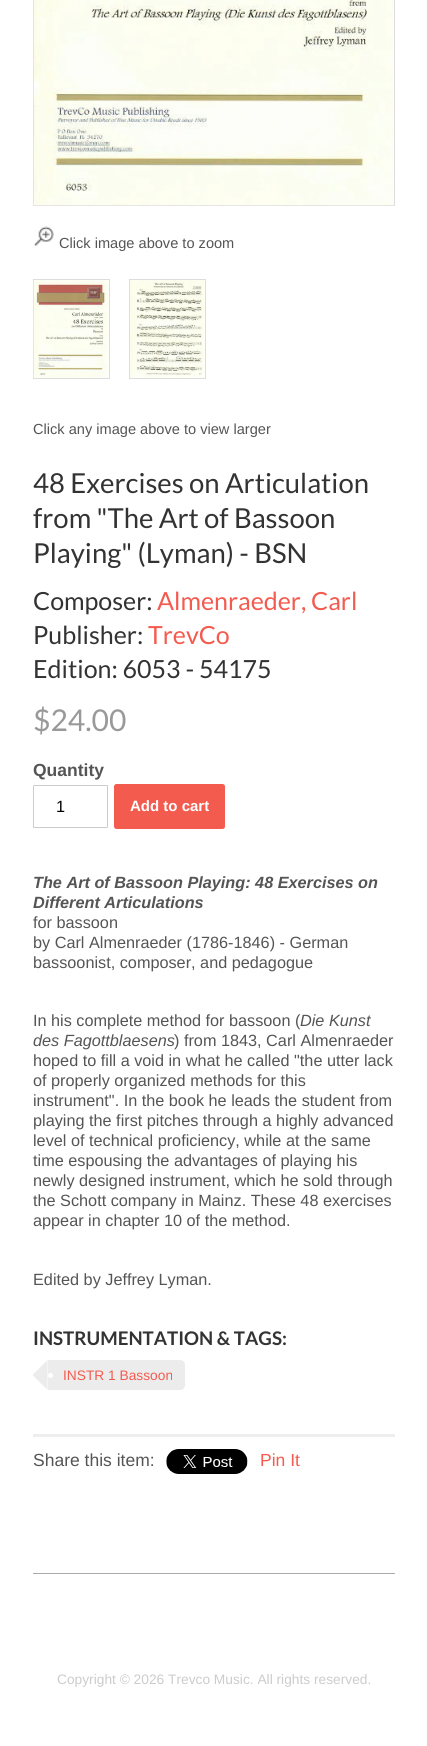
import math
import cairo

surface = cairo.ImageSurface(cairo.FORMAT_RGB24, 427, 1746)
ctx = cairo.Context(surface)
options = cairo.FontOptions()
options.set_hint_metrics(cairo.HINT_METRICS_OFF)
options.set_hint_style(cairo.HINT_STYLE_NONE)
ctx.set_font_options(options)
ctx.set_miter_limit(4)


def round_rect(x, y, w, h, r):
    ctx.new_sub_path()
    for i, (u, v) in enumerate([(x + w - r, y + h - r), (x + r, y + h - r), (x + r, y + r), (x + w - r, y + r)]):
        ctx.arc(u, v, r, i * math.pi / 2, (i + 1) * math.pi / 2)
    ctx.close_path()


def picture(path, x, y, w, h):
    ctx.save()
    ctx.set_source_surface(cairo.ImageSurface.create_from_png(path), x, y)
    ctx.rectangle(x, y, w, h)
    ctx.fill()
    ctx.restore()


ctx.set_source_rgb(1, 1, 1)
ctx.paint()
ctx.rectangle(33.5, -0.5, 361, 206)
ctx.set_source_rgb(0.867, 0.867, 0.867)
ctx.set_line_width(1)
ctx.stroke()
picture("img1.png", 33, 0, 361, 206)
picture("img2.png", 33, 226, 21, 21)
ctx.select_font_face("Liberation Sans")
ctx.set_font_size(14.6)
ctx.set_source_rgb(0.333, 0.333, 0.333)
ctx.move_to(59, 248)
ctx.show_text("Click image above to zoom")
ctx.rectangle(33.5, 279.5, 76, 99)
ctx.set_source_rgb(0.867, 0.867, 0.867)
ctx.stroke()
picture("img3.png", 33, 280, 76, 98)
ctx.rectangle(129.5, 279.5, 76, 99)
ctx.stroke()
picture("img4.png", 130, 280, 75, 98)
ctx.set_source_rgb(0.333, 0.333, 0.333)
ctx.move_to(33, 434)
ctx.show_text("Click any image above to view larger")
ctx.select_font_face("Lato")
ctx.set_font_size(27.5)
ctx.set_source_rgb(0.2, 0.2, 0.2)
ctx.move_to(33, 493)
ctx.show_text("48 Exercises on Articulation")
ctx.move_to(33, 528)
ctx.show_text("from \"The Art of Bassoon")
ctx.move_to(33, 563)
ctx.show_text("Playing\" (Lyman) - BSN")
ctx.set_font_size(25)
ctx.move_to(33, 610)
ctx.show_text("Composer:")
ctx.set_source_rgb(0.957, 0.357, 0.31)
ctx.move_to(157, 610)
ctx.show_text("Almenraeder, Carl")
ctx.set_source_rgb(0.2, 0.2, 0.2)
ctx.move_to(33, 644)
ctx.show_text("Publisher:")
ctx.set_source_rgb(0.957, 0.357, 0.31)
ctx.move_to(148, 644)
ctx.show_text("TrevCo")
ctx.set_source_rgb(0.2, 0.2, 0.2)
ctx.move_to(33, 678)
ctx.show_text("Edition: 6053 - 54175")
ctx.set_font_size(30)
ctx.set_source_rgb(0.6, 0.6, 0.6)
ctx.move_to(33, 731)
ctx.show_text("$24.00")
ctx.select_font_face("Liberation Sans", cairo.FONT_SLANT_NORMAL, cairo.FONT_WEIGHT_BOLD)
ctx.set_font_size(17.5)
ctx.set_source_rgb(0.333, 0.333, 0.333)
ctx.move_to(33, 776)
ctx.show_text("Quantity")
round_rect(33.5, 785.5, 74, 42, 0.5)
ctx.set_source_rgb(0.8, 0.8, 0.8)
ctx.stroke()
ctx.select_font_face("Liberation Sans")
ctx.set_font_size(16.25)
ctx.set_source_rgb(0, 0, 0)
ctx.move_to(56, 812)
ctx.show_text("1")
ctx.set_source_rgb(0.957, 0.357, 0.31)
round_rect(114, 784, 111, 45, 2.5)
ctx.fill()
ctx.select_font_face("Liberation Sans", cairo.FONT_SLANT_NORMAL, cairo.FONT_WEIGHT_BOLD)
ctx.set_font_size(15)
ctx.set_source_rgb(1, 1, 1)
ctx.move_to(130, 811)
ctx.show_text("Add to cart")
ctx.select_font_face("Liberation Sans", cairo.FONT_SLANT_ITALIC, cairo.FONT_WEIGHT_BOLD)
ctx.set_font_size(16.25)
ctx.set_source_rgb(0.333, 0.333, 0.333)
ctx.move_to(33, 888)
ctx.show_text("The Art of Bassoon Playing: 48 Exercises on")
ctx.move_to(33, 908)
ctx.show_text("Different Articulations")
ctx.select_font_face("Liberation Sans")
ctx.move_to(33, 928)
ctx.show_text("for bassoon")
ctx.move_to(33, 948)
ctx.show_text("by Carl Almenraeder (1786-1846) - German")
ctx.move_to(33, 968)
ctx.show_text("bassoonist, composer, and pedagogue")
ctx.move_to(33, 1026)
ctx.show_text("In his complete method for bassoon (")
ctx.select_font_face("Liberation Sans", cairo.FONT_SLANT_ITALIC)
ctx.move_to(300, 1026)
ctx.show_text("Die Kunst")
ctx.move_to(33, 1046)
ctx.show_text("des Fagottblaesens")
ctx.select_font_face("Liberation Sans")
ctx.move_to(174, 1046)
ctx.show_text(") from 1843, Carl Almenraeder")
ctx.move_to(33, 1066)
ctx.show_text("hoped to fill a void in what he called \"the utter lack")
ctx.move_to(33, 1086)
ctx.show_text("of properly organized methods for this")
ctx.move_to(33, 1106)
ctx.show_text("instrument\". In the book he leads the student from")
ctx.move_to(33, 1126)
ctx.show_text("playing the first pitches through a highly advanced")
ctx.move_to(33, 1146)
ctx.show_text("level of technical proficiency, while at the same")
ctx.move_to(33, 1166)
ctx.show_text("time espousing the advantages of playing his")
ctx.move_to(33, 1186)
ctx.show_text("newly designed instrument, which he sold through")
ctx.move_to(33, 1206)
ctx.show_text("the Schott company in Mainz. These 48 exercises")
ctx.move_to(33, 1226)
ctx.show_text("appear in chapter 10 of the method.")
ctx.move_to(33, 1285)
ctx.show_text("Edited by Jeffrey Lyman.")
ctx.select_font_face("Lato", cairo.FONT_SLANT_NORMAL, cairo.FONT_WEIGHT_BOLD)
ctx.set_font_size(18.75)
ctx.set_source_rgb(0.2, 0.2, 0.2)
ctx.move_to(33, 1345)
ctx.show_text("INSTRUMENTATION & TAGS:")
ctx.set_source_rgb(0.925, 0.925, 0.925)
ctx.new_path()
ctx.move_to(48, 1360)
ctx.line_to(180, 1360)
ctx.curve_to(183, 1360, 185, 1362, 185, 1365)
ctx.line_to(185, 1385)
ctx.curve_to(185, 1388, 183, 1390, 180, 1390)
ctx.line_to(48, 1390)
ctx.close_path()
ctx.fill()
ctx.new_path()
ctx.move_to(47.5, 1360)
ctx.line_to(47.5, 1390)
ctx.line_to(32.5, 1375)
ctx.close_path()
ctx.fill()
ctx.set_source_rgb(1, 1, 1)
ctx.arc(50.5, 1375.5, 2.5, 0, 2 * math.pi)
ctx.fill()
ctx.select_font_face("Liberation Sans")
ctx.set_font_size(13.75)
ctx.set_source_rgb(0.957, 0.357, 0.31)
ctx.move_to(63, 1380)
ctx.show_text("INSTR 1 Bassoon")
ctx.set_source_rgb(0.933, 0.933, 0.933)
ctx.rectangle(33, 1434, 362, 3)
ctx.fill()
ctx.set_font_size(17.5)
ctx.set_source_rgb(0.333, 0.333, 0.333)
ctx.move_to(33, 1466)
ctx.show_text("Share this item:")
picture("img5.png", 166, 1449, 82, 25)
ctx.set_source_rgb(0.957, 0.357, 0.31)
ctx.move_to(260, 1466)
ctx.show_text("Pin It")
ctx.set_source_rgb(0.667, 0.667, 0.667)
ctx.rectangle(33, 1573, 362, 1)
ctx.fill()
ctx.set_font_size(13.75)
ctx.set_source_rgb(0.8, 0.8, 0.8)
ctx.move_to(57, 1684)
ctx.show_text("Copyright © 2026 Trevco Music. All rights reserved.")
surface.write_to_png("page.png")
